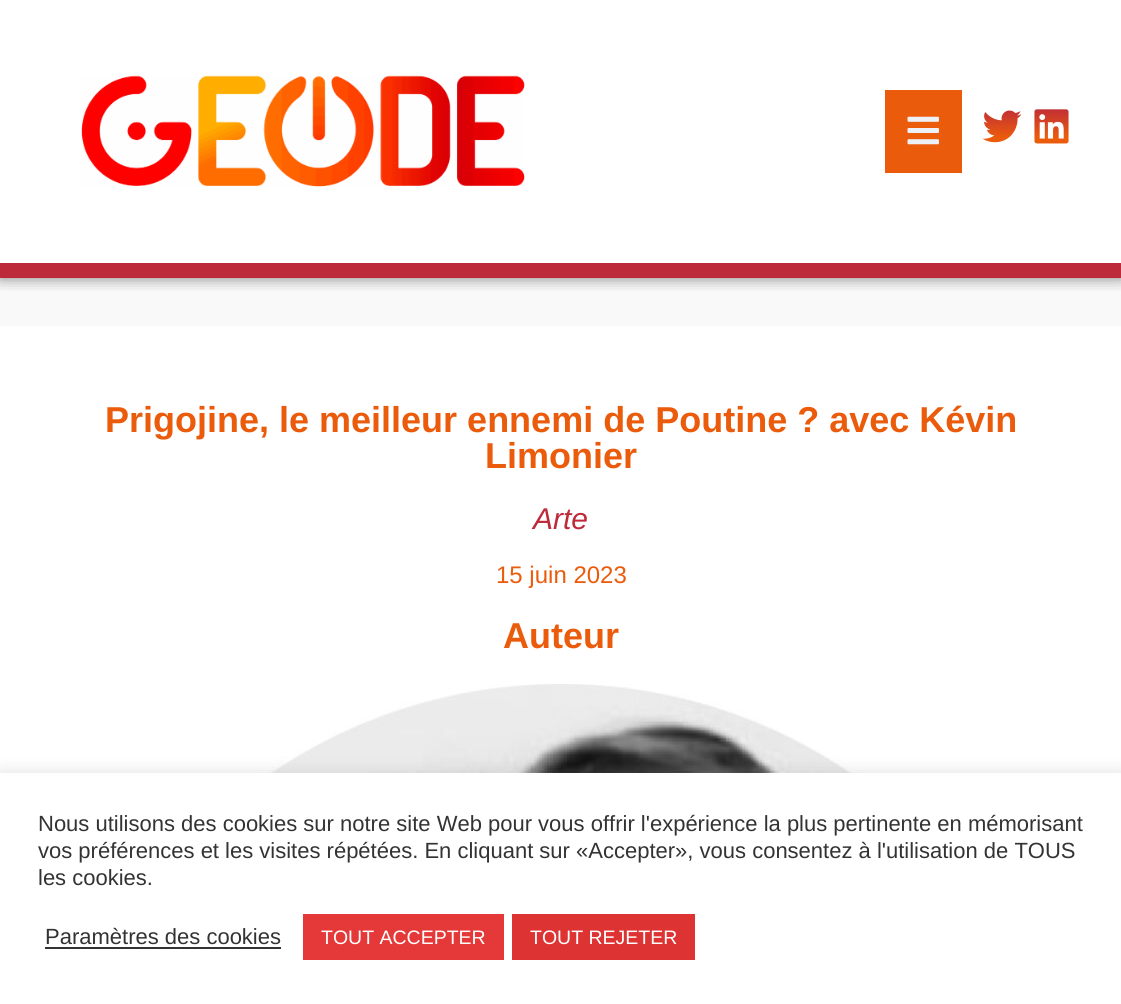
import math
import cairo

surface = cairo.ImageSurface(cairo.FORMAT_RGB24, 1121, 1004)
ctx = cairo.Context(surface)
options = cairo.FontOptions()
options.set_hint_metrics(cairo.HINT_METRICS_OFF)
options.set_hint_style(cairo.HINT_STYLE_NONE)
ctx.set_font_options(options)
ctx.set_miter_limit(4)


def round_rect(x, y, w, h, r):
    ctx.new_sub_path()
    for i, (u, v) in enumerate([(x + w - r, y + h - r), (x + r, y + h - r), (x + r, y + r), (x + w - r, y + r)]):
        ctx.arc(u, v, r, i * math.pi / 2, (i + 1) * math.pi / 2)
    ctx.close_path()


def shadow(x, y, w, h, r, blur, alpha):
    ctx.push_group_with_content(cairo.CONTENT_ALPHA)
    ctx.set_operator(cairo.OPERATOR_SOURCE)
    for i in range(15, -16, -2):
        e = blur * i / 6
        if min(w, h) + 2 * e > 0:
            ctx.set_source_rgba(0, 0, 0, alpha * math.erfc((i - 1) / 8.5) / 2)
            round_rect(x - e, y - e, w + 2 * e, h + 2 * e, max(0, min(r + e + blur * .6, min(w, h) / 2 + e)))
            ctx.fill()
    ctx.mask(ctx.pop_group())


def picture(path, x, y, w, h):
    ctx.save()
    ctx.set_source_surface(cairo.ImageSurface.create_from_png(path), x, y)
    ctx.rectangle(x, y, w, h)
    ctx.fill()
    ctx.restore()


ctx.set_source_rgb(1, 1, 1)
ctx.paint()
ctx.set_source_rgb(0.973, 0.976, 0.98)
ctx.rectangle(0, 278, 1121, 48)
ctx.fill()
ctx.save()
ctx.rectangle(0, 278, 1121, 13)
ctx.clip()
ctx.set_source_rgb(0, 0, 0)
shadow(0, 0, 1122, 278, 0, 7.5, 0.5)
ctx.restore()
ctx.set_source_rgb(0.741, 0.165, 0.227)
ctx.rectangle(0, 263, 1121, 15)
ctx.fill()
picture("img1.png", 81, 75, 444, 112)
ctx.set_source_rgb(0.918, 0.357, 0.047)
ctx.rectangle(885, 90, 77, 83)
ctx.fill()
picture("img2.png", 907, 116, 32, 29)
picture("img3.png", 982, 110, 40, 33)
picture("img4.png", 1034, 109, 35, 35)
ctx.select_font_face("Liberation Sans", cairo.FONT_SLANT_NORMAL, cairo.FONT_WEIGHT_BOLD)
ctx.set_font_size(36)
ctx.move_to(105, 432)
ctx.show_text("Prigojine, le meilleur ennemi de Poutine ? avec Kévin")
ctx.move_to(485, 468)
ctx.show_text("Limonier")
ctx.select_font_face("Liberation Sans", cairo.FONT_SLANT_ITALIC)
ctx.set_font_size(30)
ctx.set_source_rgb(0.741, 0.165, 0.227)
ctx.move_to(533, 529)
ctx.show_text("Arte")
ctx.select_font_face("Liberation Sans")
ctx.set_font_size(24)
ctx.set_source_rgb(0.918, 0.357, 0.047)
ctx.move_to(496, 583)
ctx.show_text("15 juin 2023")
ctx.select_font_face("Liberation Sans", cairo.FONT_SLANT_NORMAL, cairo.FONT_WEIGHT_BOLD)
ctx.set_font_size(36)
ctx.move_to(503, 648)
ctx.show_text("Auteur")
picture("img5.png", 83, 684, 956, 89)
ctx.set_source_rgb(0.675, 0.671, 0.671)
shadow(0, 771, 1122, 233, 0, 7.5, 0.3)
ctx.set_source_rgb(1, 1, 1)
ctx.rectangle(0, 773, 1121, 231)
ctx.fill()
ctx.select_font_face("Liberation Sans")
ctx.set_font_size(22)
ctx.set_source_rgb(0.2, 0.2, 0.2)
ctx.move_to(38, 831)
ctx.show_text("Nous utilisons des cookies sur notre site Web pour vous offrir l'expérience la plus pertinente en mémorisant")
ctx.move_to(38, 858)
ctx.show_text("vos préférences et les visites répétées. En cliquant sur «Accepter», vous consentez à l'utilisation de TOUS")
ctx.move_to(38, 885)
ctx.show_text("les cookies.")
ctx.move_to(45, 944)
ctx.show_text("Paramètres des cookies")
ctx.rectangle(45, 947, 236, 2)
ctx.fill()
ctx.set_source_rgb(0.898, 0.224, 0.224)
ctx.rectangle(303, 914, 201, 46)
ctx.fill()
ctx.set_font_size(19.5)
ctx.set_source_rgb(1, 1, 1)
ctx.move_to(321, 944)
ctx.show_text("TOUT ACCEPTER")
ctx.set_source_rgb(0.867, 0.2, 0.2)
ctx.rectangle(512, 914, 183, 46)
ctx.fill()
ctx.set_source_rgb(1, 1, 1)
ctx.move_to(530, 944)
ctx.show_text("TOUT REJETER")
surface.write_to_png("page.png")
